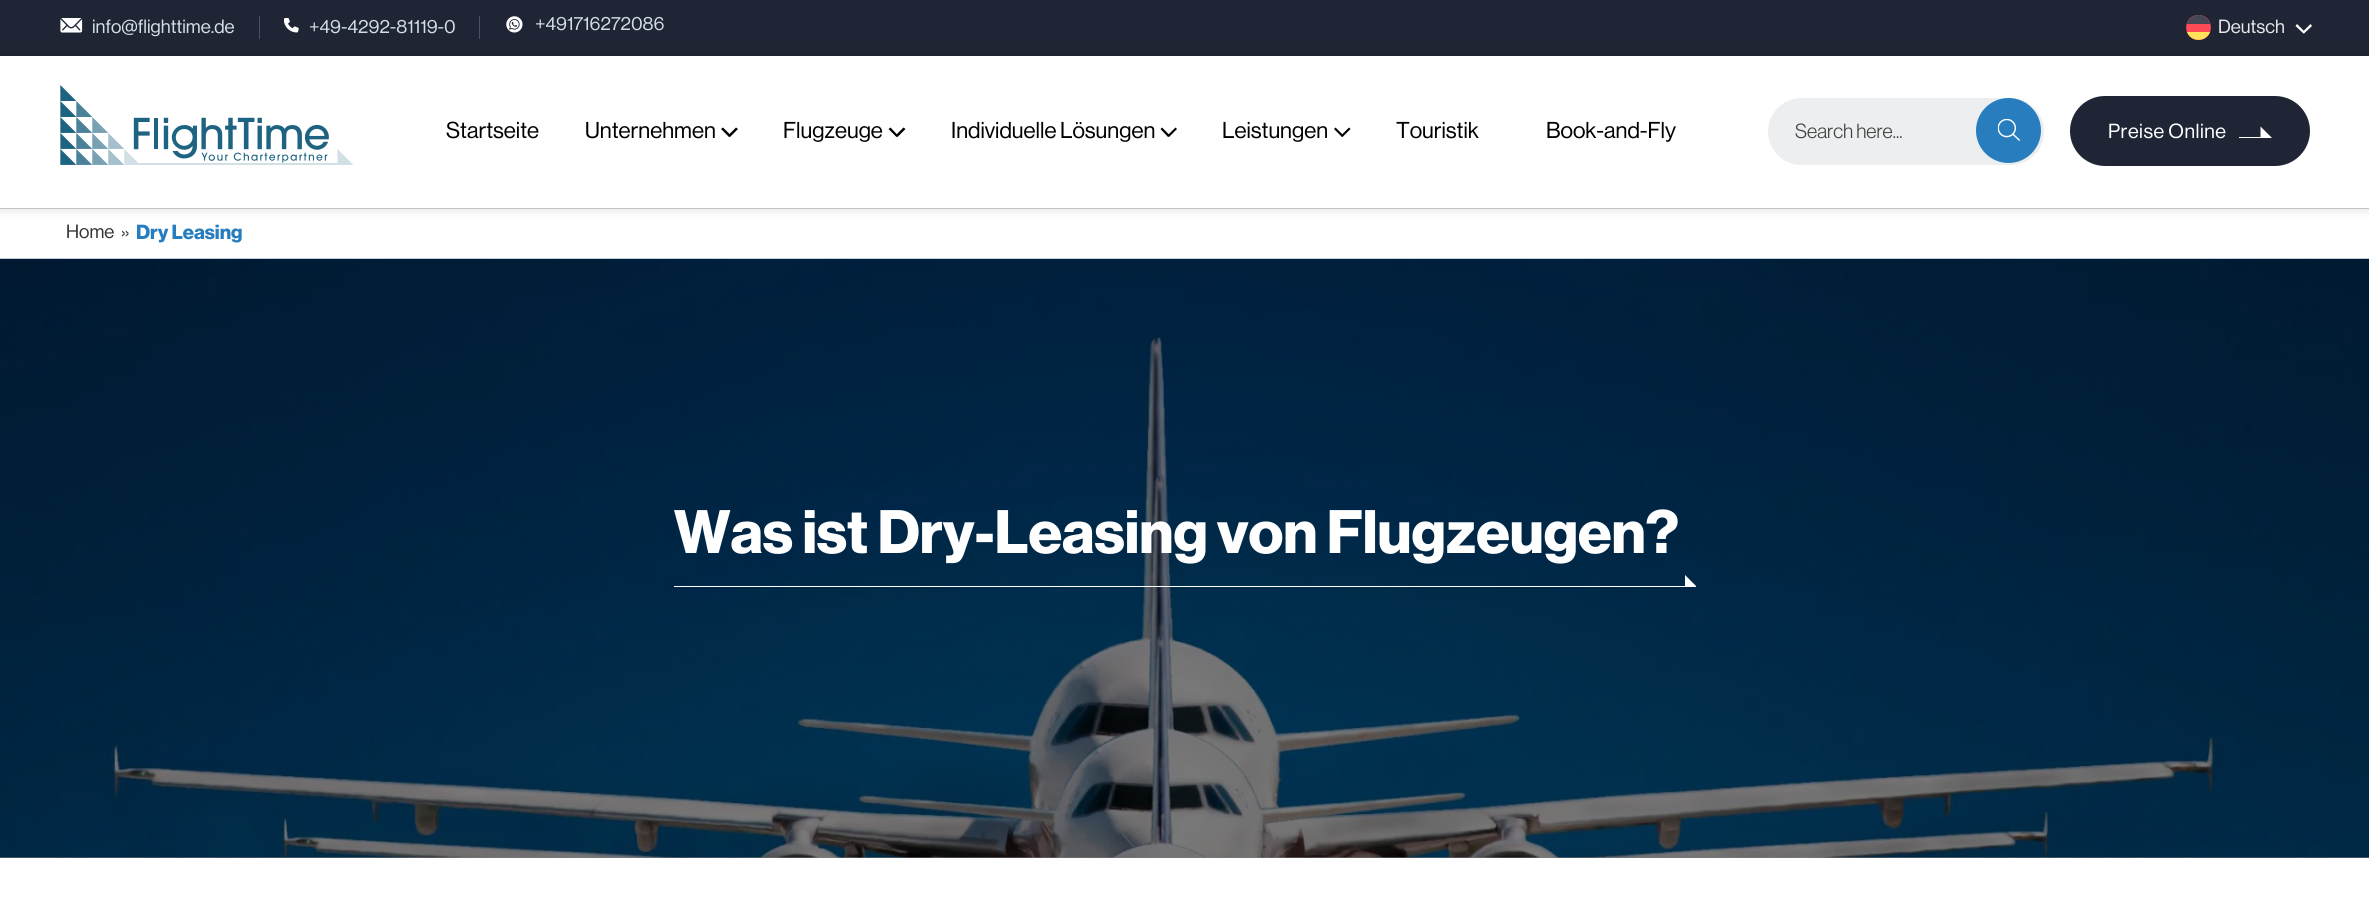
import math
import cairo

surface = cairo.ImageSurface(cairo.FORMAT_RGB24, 2369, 921)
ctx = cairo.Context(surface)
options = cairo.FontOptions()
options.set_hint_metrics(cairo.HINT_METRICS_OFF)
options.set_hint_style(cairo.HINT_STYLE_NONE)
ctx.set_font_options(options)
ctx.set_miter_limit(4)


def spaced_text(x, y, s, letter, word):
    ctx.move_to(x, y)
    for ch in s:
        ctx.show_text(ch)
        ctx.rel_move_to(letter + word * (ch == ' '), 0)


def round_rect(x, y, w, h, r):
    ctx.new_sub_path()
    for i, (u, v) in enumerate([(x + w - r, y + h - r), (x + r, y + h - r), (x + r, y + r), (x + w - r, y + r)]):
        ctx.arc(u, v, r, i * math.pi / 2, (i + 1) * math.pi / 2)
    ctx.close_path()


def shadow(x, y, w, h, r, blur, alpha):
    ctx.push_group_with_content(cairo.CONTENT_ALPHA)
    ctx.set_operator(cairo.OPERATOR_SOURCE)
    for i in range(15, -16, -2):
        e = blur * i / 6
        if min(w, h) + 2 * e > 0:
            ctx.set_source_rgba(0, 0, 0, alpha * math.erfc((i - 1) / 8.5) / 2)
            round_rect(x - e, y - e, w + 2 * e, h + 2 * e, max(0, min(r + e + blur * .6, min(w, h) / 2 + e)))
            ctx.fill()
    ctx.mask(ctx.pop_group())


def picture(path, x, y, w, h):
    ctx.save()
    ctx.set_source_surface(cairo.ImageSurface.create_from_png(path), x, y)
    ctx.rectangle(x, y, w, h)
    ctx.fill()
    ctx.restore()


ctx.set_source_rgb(1, 1, 1)
ctx.paint()
ctx.set_source_rgb(0.478, 0.478, 0.478)
ctx.rectangle(0, 857, 2369, 1)
ctx.fill()
ctx.set_source_rgb(0.122, 0.145, 0.204)
ctx.rectangle(0, 0, 2369, 56)
ctx.fill()
ctx.set_source_rgb(0.824, 0.824, 0.824)
ctx.rectangle(0, 208, 2369, 1)
ctx.fill()
ctx.set_source_rgb(0, 0, 0)
shadow(0, 56, 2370, 152, 0, 6, 0.16)
ctx.set_source_rgb(0.294, 0.322, 0.392)
ctx.rectangle(259, 16, 1, 23)
ctx.fill()
picture("img1.png", 60, 18, 23, 15)
ctx.select_font_face("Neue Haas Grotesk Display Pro")
ctx.set_font_size(18.75)
ctx.set_source_rgb(0.824, 0.878, 0.902)
ctx.move_to(92, 33)
ctx.show_text("info@flighttime.de")
ctx.set_source_rgb(0.294, 0.322, 0.392)
ctx.rectangle(479, 16, 1, 23)
ctx.fill()
picture("img2.png", 284, 18, 15, 15)
ctx.set_source_rgb(0.824, 0.878, 0.902)
ctx.move_to(309, 33)
ctx.show_text("+49-4292-81119-0")
picture("img3.png", 506, 16, 17, 17)
ctx.move_to(535, 30)
ctx.show_text("+491716272086")
ctx.set_source_rgb(1, 0.294, 0.333)
ctx.new_path()
ctx.move_to(2198.5, 15)
ctx.curve_to(2215, 15, 2215, 40, 2198.5, 40)
ctx.curve_to(2182, 40, 2182, 15, 2198.5, 15)
ctx.close_path()
ctx.fill()
ctx.set_source_rgb(1, 0.882, 0.353)
ctx.new_path()
ctx.move_to(2210, 32)
ctx.line_to(2187, 32)
ctx.curve_to(2191, 42.5, 2206, 42.5, 2210, 32)
ctx.close_path()
ctx.fill()
ctx.set_source_rgb(0.275, 0.275, 0.333)
ctx.new_path()
ctx.move_to(2198.5, 15)
ctx.curve_to(2193, 15, 2188, 19, 2186.5, 24)
ctx.line_to(2210.5, 24)
ctx.curve_to(2209, 19, 2204, 15, 2198.5, 15)
ctx.close_path()
ctx.fill()
ctx.set_source_rgb(0.91, 0.91, 0.91)
ctx.move_to(2218, 33)
ctx.show_text("Deutsch")
ctx.set_source_rgb(1, 1, 1)
ctx.new_path()
ctx.move_to(2310.5, 24)
ctx.line_to(2312, 26)
ctx.line_to(2304, 33.5)
ctx.line_to(2302.5, 32)
ctx.close_path()
ctx.fill()
ctx.new_path()
ctx.move_to(2297, 24)
ctx.line_to(2305, 32)
ctx.line_to(2303.5, 33.5)
ctx.line_to(2295.5, 26)
ctx.close_path()
ctx.fill()
ctx.rectangle(0, 56, 2369, 152)
ctx.fill()
picture("img4.png", 60, 85, 294, 80)
ctx.set_font_size(22.5)
ctx.set_source_rgb(0, 0, 0)
ctx.move_to(446, 138)
ctx.show_text("Startseite")
ctx.move_to(585, 138)
ctx.show_text("Unternehmen")
ctx.new_path()
ctx.move_to(736, 127.5)
ctx.line_to(738, 129)
ctx.line_to(730, 137)
ctx.line_to(728, 135.5)
ctx.close_path()
ctx.fill()
ctx.new_path()
ctx.move_to(723, 127.5)
ctx.line_to(731, 135.5)
ctx.line_to(729, 137)
ctx.line_to(721, 129)
ctx.close_path()
ctx.fill()
ctx.move_to(783, 138)
ctx.show_text("Flugzeuge")
ctx.new_path()
ctx.move_to(903.5, 127.5)
ctx.line_to(905.5, 129)
ctx.line_to(897.5, 137)
ctx.line_to(895.5, 135.5)
ctx.close_path()
ctx.fill()
ctx.new_path()
ctx.move_to(890.5, 127.5)
ctx.line_to(898, 135.5)
ctx.line_to(896.5, 137)
ctx.line_to(888.5, 129)
ctx.close_path()
ctx.fill()
ctx.move_to(951, 138)
ctx.show_text("Individuelle Lösungen")
ctx.new_path()
ctx.move_to(1175.5, 127.5)
ctx.line_to(1177, 129)
ctx.line_to(1169, 137)
ctx.line_to(1167.5, 135.5)
ctx.close_path()
ctx.fill()
ctx.new_path()
ctx.move_to(1162, 127.5)
ctx.line_to(1170, 135.5)
ctx.line_to(1168, 137)
ctx.line_to(1160.5, 129)
ctx.close_path()
ctx.fill()
ctx.move_to(1222, 138)
ctx.show_text("Leistungen")
ctx.new_path()
ctx.move_to(1349, 127.5)
ctx.line_to(1350.5, 129)
ctx.line_to(1342.5, 137)
ctx.line_to(1341, 135.5)
ctx.close_path()
ctx.fill()
ctx.new_path()
ctx.move_to(1335.5, 127.5)
ctx.line_to(1343.5, 135.5)
ctx.line_to(1342, 137)
ctx.line_to(1334, 129)
ctx.close_path()
ctx.fill()
ctx.move_to(1396, 138)
ctx.show_text("Touristik")
ctx.move_to(1546, 138)
ctx.show_text("Book-and-Fly")
ctx.set_source_rgb(0.922, 0.933, 0.937)
round_rect(1768, 98, 276, 67, 33.5)
ctx.fill()
ctx.select_font_face("Neue Haas Grotesk Display Pro Light")
ctx.set_font_size(20)
ctx.set_source_rgb(0.251, 0.251, 0.251)
ctx.move_to(1795, 138)
ctx.show_text("Search here...")
ctx.set_source_rgb(0.157, 0.49, 0.749)
ctx.new_path()
ctx.arc(2008.5, 130.5, 32.5, 0, 2 * math.pi)
ctx.fill()
picture("img5.png", 1998, 119, 22, 22)
ctx.set_source_rgb(0.122, 0.145, 0.204)
round_rect(2070, 96, 240, 70, 35)
ctx.fill()
ctx.select_font_face("Neue Haas Grotesk Display Pro")
ctx.set_source_rgb(1, 1, 1)
spaced_text(2108, 138, "Preise Online", 0.5, 0)
ctx.save()
ctx.rectangle(2239, 126, 34, 12)
ctx.clip()
ctx.new_path()
ctx.move_to(2239, 138.5)
ctx.line_to(2239, 137)
ctx.line_to(2260.5, 137)
ctx.line_to(2260.5, 126.5)
ctx.line_to(2272.5, 138.5)
ctx.line_to(2270, 138.5)
ctx.close_path()
ctx.fill()
ctx.restore()
ctx.set_font_size(18.75)
ctx.set_source_rgb(0.2, 0.2, 0.2)
ctx.move_to(66, 238)
ctx.show_text("Home")
ctx.set_font_size(20)
ctx.set_source_rgb(0.251, 0.251, 0.251)
ctx.move_to(121, 239)
ctx.show_text("»")
ctx.select_font_face("Neue Haas Grotesk Display Pro", cairo.FONT_SLANT_NORMAL, cairo.FONT_WEIGHT_BOLD)
ctx.set_source_rgb(0.157, 0.49, 0.749)
ctx.move_to(136, 239)
ctx.show_text("Dry Leasing")
picture("img6.png", 0, 258, 2369, 600)
ctx.set_source_rgb(1, 1, 1)
ctx.rectangle(674, 586, 1022, 1)
ctx.fill()
ctx.set_font_size(60)
ctx.move_to(674, 553)
ctx.show_text("Was ist Dry-Leasing von Flugzeugen?")
ctx.new_path()
ctx.move_to(1685, 586)
ctx.line_to(1696, 586)
ctx.line_to(1685, 575)
ctx.fill()
surface.write_to_png("page.png")
